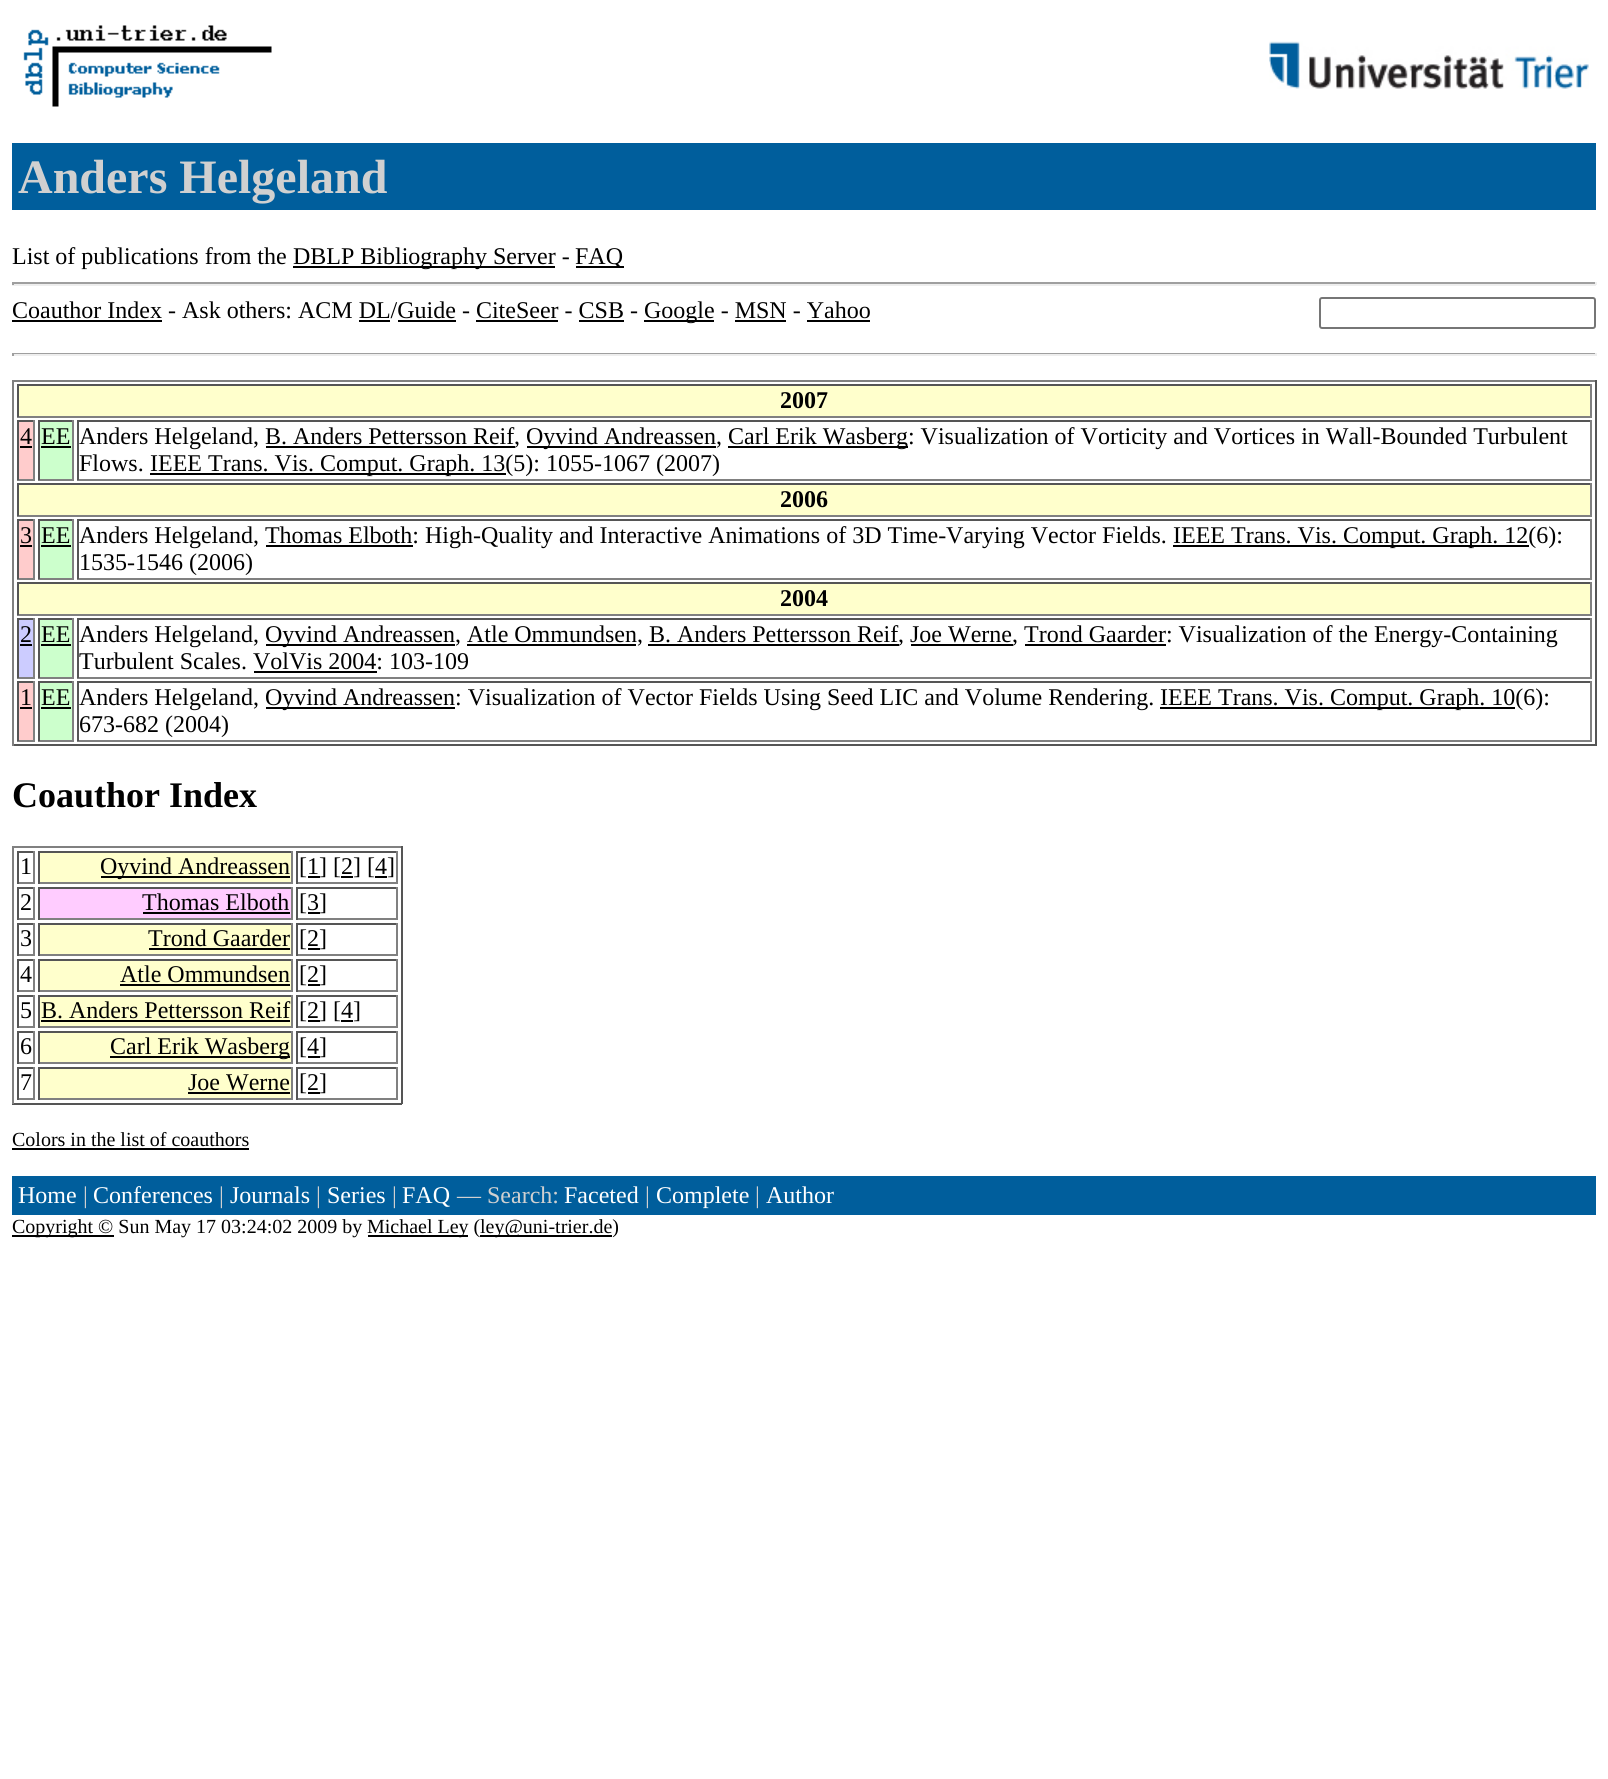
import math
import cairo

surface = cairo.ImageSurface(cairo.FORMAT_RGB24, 1608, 1779)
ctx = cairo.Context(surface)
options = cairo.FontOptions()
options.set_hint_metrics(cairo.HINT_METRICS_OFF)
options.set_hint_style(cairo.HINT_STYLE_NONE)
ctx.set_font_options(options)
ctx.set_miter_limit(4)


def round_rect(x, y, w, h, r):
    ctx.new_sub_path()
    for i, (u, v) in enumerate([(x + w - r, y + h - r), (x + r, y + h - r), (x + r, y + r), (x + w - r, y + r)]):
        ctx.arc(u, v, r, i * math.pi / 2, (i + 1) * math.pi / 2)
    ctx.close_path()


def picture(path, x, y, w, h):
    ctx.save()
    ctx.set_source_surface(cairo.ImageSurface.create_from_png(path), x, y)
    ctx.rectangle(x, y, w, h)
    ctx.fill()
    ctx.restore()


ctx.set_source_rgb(1, 1, 1)
ctx.paint()
picture("img1.png", 23, 25, 249, 82)
picture("img2.png", 1269, 41, 320, 48)
ctx.set_source_rgb(0, 0.369, 0.612)
ctx.rectangle(12, 143, 1584, 67)
ctx.fill()
ctx.select_font_face("Liberation Serif", cairo.FONT_SLANT_NORMAL, cairo.FONT_WEIGHT_BOLD)
ctx.set_font_size(48)
ctx.set_source_rgb(0.816, 0.816, 0.816)
ctx.move_to(18, 193)
ctx.show_text("Anders Helgeland")
ctx.select_font_face("Liberation Serif")
ctx.set_font_size(24)
ctx.set_source_rgb(0, 0, 0)
ctx.move_to(12, 264)
ctx.show_text("List of publications from the")
ctx.rectangle(293, 266, 262, 2)
ctx.fill()
ctx.move_to(293, 264)
ctx.show_text("DBLP Bibliography Server -")
ctx.rectangle(576, 266, 48, 2)
ctx.fill()
ctx.move_to(575, 264)
ctx.show_text("FAQ")
ctx.set_source_rgb(0.624, 0.624, 0.624)
ctx.rectangle(12, 282, 1584, 2)
ctx.fill()
ctx.set_source_rgb(0.933, 0.933, 0.933)
ctx.rectangle(1595, 282, 2, 3)
ctx.fill()
ctx.rectangle(12, 284, 1584, 2)
ctx.fill()
ctx.set_source_rgb(0.624, 0.624, 0.624)
ctx.rectangle(12, 282, 2, 3)
ctx.fill()
ctx.set_source_rgb(0, 0, 0)
ctx.move_to(12, 318)
ctx.show_text("Coauthor Index - Ask others: ACM DL/Guide - CiteSeer - CSB -")
ctx.rectangle(12, 320, 150, 2)
ctx.fill()
ctx.rectangle(644, 320, 70, 2)
ctx.fill()
ctx.move_to(644, 318)
ctx.show_text("Google - MSN - Yahoo")
round_rect(1320, 298, 275, 30, 2)
ctx.set_source_rgb(0.463, 0.463, 0.463)
ctx.stroke()
ctx.set_source_rgb(0, 0, 0)
ctx.rectangle(359, 320, 31, 2)
ctx.fill()
ctx.rectangle(398, 320, 58, 2)
ctx.fill()
ctx.rectangle(476, 320, 82, 2)
ctx.fill()
ctx.rectangle(579, 320, 45, 2)
ctx.fill()
ctx.rectangle(735, 320, 51, 2)
ctx.fill()
ctx.rectangle(807, 320, 63, 2)
ctx.fill()
ctx.set_source_rgb(0.624, 0.624, 0.624)
ctx.rectangle(12, 353, 1584, 1)
ctx.fill()
ctx.set_source_rgb(0.933, 0.933, 0.933)
ctx.rectangle(1595, 353, 2, 3)
ctx.fill()
ctx.rectangle(12, 354, 1584, 2)
ctx.fill()
ctx.set_source_rgb(0.624, 0.624, 0.624)
ctx.rectangle(12, 353, 2, 3)
ctx.fill()
ctx.set_source_rgb(0.502, 0.502, 0.502)
ctx.rectangle(12, 380, 1584, 2)
ctx.fill()
ctx.set_source_rgb(0.333, 0.333, 0.333)
ctx.rectangle(1595, 380, 2, 366)
ctx.fill()
ctx.rectangle(12, 744, 1584, 2)
ctx.fill()
ctx.set_source_rgb(0.502, 0.502, 0.502)
ctx.rectangle(12, 380, 2, 366)
ctx.fill()
ctx.set_source_rgb(1, 1, 0.8)
ctx.rectangle(19, 386, 1571, 30)
ctx.fill()
ctx.set_source_rgb(0.333, 0.333, 0.333)
ctx.rectangle(17, 384, 1575, 2)
ctx.fill()
ctx.set_source_rgb(0.502, 0.502, 0.502)
ctx.rectangle(1590, 384, 2, 33)
ctx.fill()
ctx.rectangle(17, 416, 1575, 2)
ctx.fill()
ctx.set_source_rgb(0.333, 0.333, 0.333)
ctx.rectangle(17, 384, 2, 33)
ctx.fill()
ctx.select_font_face("Liberation Serif", cairo.FONT_SLANT_NORMAL, cairo.FONT_WEIGHT_BOLD)
ctx.set_source_rgb(0, 0, 0)
ctx.move_to(780, 408)
ctx.show_text("2007")
ctx.set_source_rgb(1, 0.8, 0.8)
ctx.rectangle(19, 422, 14, 57)
ctx.fill()
ctx.set_source_rgb(0.333, 0.333, 0.333)
ctx.rectangle(17, 420, 18, 2)
ctx.fill()
ctx.set_source_rgb(0.502, 0.502, 0.502)
ctx.rectangle(33, 420, 2, 60)
ctx.fill()
ctx.rectangle(17, 479, 18, 2)
ctx.fill()
ctx.set_source_rgb(0.333, 0.333, 0.333)
ctx.rectangle(17, 420, 2, 60)
ctx.fill()
ctx.select_font_face("Liberation Serif")
ctx.set_source_rgb(0, 0, 0)
ctx.move_to(20, 444)
ctx.show_text("4")
ctx.rectangle(20, 446, 12, 2)
ctx.fill()
ctx.set_source_rgb(0.8, 1, 0.8)
ctx.rectangle(40, 422, 32, 57)
ctx.fill()
ctx.set_source_rgb(0.333, 0.333, 0.333)
ctx.rectangle(38, 420, 36, 2)
ctx.fill()
ctx.set_source_rgb(0.502, 0.502, 0.502)
ctx.rectangle(72, 420, 2, 60)
ctx.fill()
ctx.rectangle(38, 479, 36, 2)
ctx.fill()
ctx.set_source_rgb(0.333, 0.333, 0.333)
ctx.rectangle(38, 420, 2, 60)
ctx.fill()
ctx.set_source_rgb(0, 0, 0)
ctx.move_to(41, 444)
ctx.show_text("EE")
ctx.rectangle(41, 446, 30, 2)
ctx.fill()
ctx.set_source_rgb(0.333, 0.333, 0.333)
ctx.rectangle(77, 420, 1515, 2)
ctx.fill()
ctx.set_source_rgb(0.502, 0.502, 0.502)
ctx.rectangle(1590, 420, 2, 60)
ctx.fill()
ctx.rectangle(77, 479, 1515, 2)
ctx.fill()
ctx.set_source_rgb(0.333, 0.333, 0.333)
ctx.rectangle(77, 420, 2, 60)
ctx.fill()
ctx.set_source_rgb(0, 0, 0)
ctx.move_to(79, 444)
ctx.show_text("Anders Helgeland, B. Anders Pettersson Reif")
ctx.rectangle(266, 446, 249, 2)
ctx.fill()
ctx.move_to(514, 444)
ctx.show_text(",")
ctx.rectangle(527, 446, 189, 2)
ctx.fill()
ctx.move_to(526, 444)
ctx.show_text("Oyvind Andreassen,")
ctx.rectangle(728, 446, 180, 2)
ctx.fill()
ctx.move_to(728, 444)
ctx.show_text("Carl Erik Wasberg: Visualization of Vorticity and Vortices in Wall-Bounded Turbulent")
ctx.move_to(79, 471)
ctx.show_text("Flows.")
ctx.rectangle(150, 473, 356, 2)
ctx.fill()
ctx.move_to(150, 471)
ctx.show_text("IEEE Trans. Vis. Comput. Graph. 13(5): 1055-1067 (2007)")
ctx.set_source_rgb(1, 1, 0.8)
ctx.rectangle(19, 485, 1571, 30)
ctx.fill()
ctx.set_source_rgb(0.333, 0.333, 0.333)
ctx.rectangle(17, 483, 1575, 2)
ctx.fill()
ctx.set_source_rgb(0.502, 0.502, 0.502)
ctx.rectangle(1590, 483, 2, 33)
ctx.fill()
ctx.rectangle(17, 515, 1575, 2)
ctx.fill()
ctx.set_source_rgb(0.333, 0.333, 0.333)
ctx.rectangle(17, 483, 2, 33)
ctx.fill()
ctx.select_font_face("Liberation Serif", cairo.FONT_SLANT_NORMAL, cairo.FONT_WEIGHT_BOLD)
ctx.set_source_rgb(0, 0, 0)
ctx.move_to(780, 507)
ctx.show_text("2006")
ctx.set_source_rgb(1, 0.8, 0.8)
ctx.rectangle(19, 521, 14, 57)
ctx.fill()
ctx.set_source_rgb(0.333, 0.333, 0.333)
ctx.rectangle(17, 519, 18, 2)
ctx.fill()
ctx.set_source_rgb(0.502, 0.502, 0.502)
ctx.rectangle(33, 519, 2, 60)
ctx.fill()
ctx.rectangle(17, 578, 18, 2)
ctx.fill()
ctx.set_source_rgb(0.333, 0.333, 0.333)
ctx.rectangle(17, 519, 2, 60)
ctx.fill()
ctx.select_font_face("Liberation Serif")
ctx.set_source_rgb(0, 0, 0)
ctx.move_to(20, 543)
ctx.show_text("3")
ctx.rectangle(20, 545, 12, 2)
ctx.fill()
ctx.set_source_rgb(0.8, 1, 0.8)
ctx.rectangle(40, 521, 32, 57)
ctx.fill()
ctx.set_source_rgb(0.333, 0.333, 0.333)
ctx.rectangle(38, 519, 36, 2)
ctx.fill()
ctx.set_source_rgb(0.502, 0.502, 0.502)
ctx.rectangle(72, 519, 2, 60)
ctx.fill()
ctx.rectangle(38, 578, 36, 2)
ctx.fill()
ctx.set_source_rgb(0.333, 0.333, 0.333)
ctx.rectangle(38, 519, 2, 60)
ctx.fill()
ctx.set_source_rgb(0, 0, 0)
ctx.move_to(41, 543)
ctx.show_text("EE")
ctx.rectangle(41, 545, 30, 2)
ctx.fill()
ctx.set_source_rgb(0.333, 0.333, 0.333)
ctx.rectangle(77, 519, 1515, 2)
ctx.fill()
ctx.set_source_rgb(0.502, 0.502, 0.502)
ctx.rectangle(1590, 519, 2, 60)
ctx.fill()
ctx.rectangle(77, 578, 1515, 2)
ctx.fill()
ctx.set_source_rgb(0.333, 0.333, 0.333)
ctx.rectangle(77, 519, 2, 60)
ctx.fill()
ctx.set_source_rgb(0, 0, 0)
ctx.move_to(79, 543)
ctx.show_text("Anders Helgeland, Thomas Elboth: High-Quality and Interactive Animations of 3D Time-Varying Vector Fields.")
ctx.rectangle(1173, 545, 356, 2)
ctx.fill()
ctx.move_to(1173, 543)
ctx.show_text("IEEE Trans. Vis. Comput. Graph. 12(6):")
ctx.rectangle(266, 545, 147, 2)
ctx.fill()
ctx.move_to(79, 570)
ctx.show_text("1535-1546 (2006)")
ctx.set_source_rgb(1, 1, 0.8)
ctx.rectangle(19, 584, 1571, 30)
ctx.fill()
ctx.set_source_rgb(0.333, 0.333, 0.333)
ctx.rectangle(17, 582, 1575, 2)
ctx.fill()
ctx.set_source_rgb(0.502, 0.502, 0.502)
ctx.rectangle(1590, 582, 2, 33)
ctx.fill()
ctx.rectangle(17, 614, 1575, 2)
ctx.fill()
ctx.set_source_rgb(0.333, 0.333, 0.333)
ctx.rectangle(17, 582, 2, 33)
ctx.fill()
ctx.select_font_face("Liberation Serif", cairo.FONT_SLANT_NORMAL, cairo.FONT_WEIGHT_BOLD)
ctx.set_source_rgb(0, 0, 0)
ctx.move_to(780, 606)
ctx.show_text("2004")
ctx.set_source_rgb(0.8, 0.8, 1)
ctx.rectangle(19, 620, 14, 57)
ctx.fill()
ctx.set_source_rgb(0.333, 0.333, 0.333)
ctx.rectangle(17, 618, 18, 2)
ctx.fill()
ctx.set_source_rgb(0.502, 0.502, 0.502)
ctx.rectangle(33, 618, 2, 60)
ctx.fill()
ctx.rectangle(17, 677, 18, 2)
ctx.fill()
ctx.set_source_rgb(0.333, 0.333, 0.333)
ctx.rectangle(17, 618, 2, 60)
ctx.fill()
ctx.select_font_face("Liberation Serif")
ctx.set_source_rgb(0, 0, 0)
ctx.move_to(20, 642)
ctx.show_text("2")
ctx.rectangle(20, 644, 12, 2)
ctx.fill()
ctx.set_source_rgb(0.8, 1, 0.8)
ctx.rectangle(40, 620, 32, 57)
ctx.fill()
ctx.set_source_rgb(0.333, 0.333, 0.333)
ctx.rectangle(38, 618, 36, 2)
ctx.fill()
ctx.set_source_rgb(0.502, 0.502, 0.502)
ctx.rectangle(72, 618, 2, 60)
ctx.fill()
ctx.rectangle(38, 677, 36, 2)
ctx.fill()
ctx.set_source_rgb(0.333, 0.333, 0.333)
ctx.rectangle(38, 618, 2, 60)
ctx.fill()
ctx.set_source_rgb(0, 0, 0)
ctx.move_to(41, 642)
ctx.show_text("EE")
ctx.rectangle(41, 644, 30, 2)
ctx.fill()
ctx.set_source_rgb(0.333, 0.333, 0.333)
ctx.rectangle(77, 618, 1515, 2)
ctx.fill()
ctx.set_source_rgb(0.502, 0.502, 0.502)
ctx.rectangle(1590, 618, 2, 60)
ctx.fill()
ctx.rectangle(77, 677, 1515, 2)
ctx.fill()
ctx.set_source_rgb(0.333, 0.333, 0.333)
ctx.rectangle(77, 618, 2, 60)
ctx.fill()
ctx.set_source_rgb(0, 0, 0)
ctx.move_to(79, 642)
ctx.show_text("Anders Helgeland,")
ctx.rectangle(266, 644, 189, 2)
ctx.fill()
ctx.move_to(265, 642)
ctx.show_text("Oyvind Andreassen, Atle Ommundsen, B. Anders Pettersson Reif")
ctx.rectangle(648, 644, 251, 2)
ctx.fill()
ctx.move_to(898, 642)
ctx.show_text(", Joe Werne")
ctx.rectangle(911, 644, 102, 2)
ctx.fill()
ctx.move_to(1012, 642)
ctx.show_text(", Trond Gaarder: Visualization of the Energy-Containing")
ctx.rectangle(467, 644, 169, 2)
ctx.fill()
ctx.rectangle(1025, 644, 141, 2)
ctx.fill()
ctx.move_to(79, 669)
ctx.show_text("Turbulent Scales. VolVis 2004: 103-109")
ctx.rectangle(254, 671, 123, 2)
ctx.fill()
ctx.set_source_rgb(1, 0.8, 0.8)
ctx.rectangle(19, 683, 14, 57)
ctx.fill()
ctx.set_source_rgb(0.333, 0.333, 0.333)
ctx.rectangle(17, 681, 18, 2)
ctx.fill()
ctx.set_source_rgb(0.502, 0.502, 0.502)
ctx.rectangle(33, 681, 2, 60)
ctx.fill()
ctx.rectangle(17, 740, 18, 2)
ctx.fill()
ctx.set_source_rgb(0.333, 0.333, 0.333)
ctx.rectangle(17, 681, 2, 60)
ctx.fill()
ctx.set_source_rgb(0, 0, 0)
ctx.move_to(20, 705)
ctx.show_text("1")
ctx.rectangle(20, 707, 12, 2)
ctx.fill()
ctx.set_source_rgb(0.8, 1, 0.8)
ctx.rectangle(40, 683, 32, 57)
ctx.fill()
ctx.set_source_rgb(0.333, 0.333, 0.333)
ctx.rectangle(38, 681, 36, 2)
ctx.fill()
ctx.set_source_rgb(0.502, 0.502, 0.502)
ctx.rectangle(72, 681, 2, 60)
ctx.fill()
ctx.rectangle(38, 740, 36, 2)
ctx.fill()
ctx.set_source_rgb(0.333, 0.333, 0.333)
ctx.rectangle(38, 681, 2, 60)
ctx.fill()
ctx.set_source_rgb(0, 0, 0)
ctx.move_to(41, 705)
ctx.show_text("EE")
ctx.rectangle(41, 707, 30, 2)
ctx.fill()
ctx.set_source_rgb(0.333, 0.333, 0.333)
ctx.rectangle(77, 681, 1515, 2)
ctx.fill()
ctx.set_source_rgb(0.502, 0.502, 0.502)
ctx.rectangle(1590, 681, 2, 60)
ctx.fill()
ctx.rectangle(77, 740, 1515, 2)
ctx.fill()
ctx.set_source_rgb(0.333, 0.333, 0.333)
ctx.rectangle(77, 681, 2, 60)
ctx.fill()
ctx.set_source_rgb(0, 0, 0)
ctx.move_to(79, 705)
ctx.show_text("Anders Helgeland,")
ctx.rectangle(266, 707, 189, 2)
ctx.fill()
ctx.move_to(265, 705)
ctx.show_text("Oyvind Andreassen: Visualization of Vector Fields Using Seed LIC and Volume Rendering.")
ctx.rectangle(1160, 707, 355, 2)
ctx.fill()
ctx.move_to(1160, 705)
ctx.show_text("IEEE Trans. Vis. Comput. Graph. 10(6):")
ctx.move_to(79, 732)
ctx.show_text("673-682 (2004)")
ctx.select_font_face("Liberation Serif", cairo.FONT_SLANT_NORMAL, cairo.FONT_WEIGHT_BOLD)
ctx.set_font_size(36)
ctx.move_to(12, 807)
ctx.show_text("Coauthor Index")
ctx.set_source_rgb(0.502, 0.502, 0.502)
ctx.rectangle(12, 846, 390, 2)
ctx.fill()
ctx.set_source_rgb(0.333, 0.333, 0.333)
ctx.rectangle(401, 846, 2, 258)
ctx.fill()
ctx.rectangle(12, 1103, 390, 2)
ctx.fill()
ctx.set_source_rgb(0.502, 0.502, 0.502)
ctx.rectangle(12, 846, 2, 258)
ctx.fill()
ctx.set_source_rgb(0.333, 0.333, 0.333)
ctx.rectangle(17, 851, 18, 2)
ctx.fill()
ctx.set_source_rgb(0.502, 0.502, 0.502)
ctx.rectangle(33, 851, 2, 33)
ctx.fill()
ctx.rectangle(17, 882, 18, 2)
ctx.fill()
ctx.set_source_rgb(0.333, 0.333, 0.333)
ctx.rectangle(17, 851, 2, 33)
ctx.fill()
ctx.select_font_face("Liberation Serif")
ctx.set_font_size(24)
ctx.set_source_rgb(0, 0, 0)
ctx.move_to(20, 874)
ctx.show_text("1")
ctx.set_source_rgb(1, 1, 0.8)
ctx.rectangle(40, 853, 251, 29)
ctx.fill()
ctx.set_source_rgb(0.333, 0.333, 0.333)
ctx.rectangle(38, 851, 255, 2)
ctx.fill()
ctx.set_source_rgb(0.502, 0.502, 0.502)
ctx.rectangle(291, 851, 2, 33)
ctx.fill()
ctx.rectangle(38, 882, 255, 2)
ctx.fill()
ctx.set_source_rgb(0.333, 0.333, 0.333)
ctx.rectangle(38, 851, 2, 33)
ctx.fill()
ctx.set_source_rgb(0, 0, 0)
ctx.rectangle(101, 876, 189, 2)
ctx.fill()
ctx.move_to(100, 874)
ctx.show_text("Oyvind Andreassen")
ctx.set_source_rgb(0.333, 0.333, 0.333)
ctx.rectangle(296, 851, 102, 2)
ctx.fill()
ctx.set_source_rgb(0.502, 0.502, 0.502)
ctx.rectangle(396, 851, 2, 33)
ctx.fill()
ctx.rectangle(296, 882, 102, 2)
ctx.fill()
ctx.set_source_rgb(0.333, 0.333, 0.333)
ctx.rectangle(296, 851, 2, 33)
ctx.fill()
ctx.set_source_rgb(0, 0, 0)
ctx.move_to(299, 874)
ctx.show_text("[1")
ctx.rectangle(308, 876, 12, 2)
ctx.fill()
ctx.move_to(319, 874)
ctx.show_text("] [2] [4]")
ctx.rectangle(341, 876, 12, 2)
ctx.fill()
ctx.rectangle(375, 876, 12, 2)
ctx.fill()
ctx.set_source_rgb(0.333, 0.333, 0.333)
ctx.rectangle(17, 887, 18, 2)
ctx.fill()
ctx.set_source_rgb(0.502, 0.502, 0.502)
ctx.rectangle(33, 887, 2, 33)
ctx.fill()
ctx.rectangle(17, 918, 18, 2)
ctx.fill()
ctx.set_source_rgb(0.333, 0.333, 0.333)
ctx.rectangle(17, 887, 2, 33)
ctx.fill()
ctx.set_source_rgb(0, 0, 0)
ctx.move_to(20, 910)
ctx.show_text("2")
ctx.set_source_rgb(1, 0.8, 1)
ctx.rectangle(40, 889, 251, 29)
ctx.fill()
ctx.set_source_rgb(0.333, 0.333, 0.333)
ctx.rectangle(38, 887, 255, 2)
ctx.fill()
ctx.set_source_rgb(0.502, 0.502, 0.502)
ctx.rectangle(291, 887, 2, 33)
ctx.fill()
ctx.rectangle(38, 918, 255, 2)
ctx.fill()
ctx.set_source_rgb(0.333, 0.333, 0.333)
ctx.rectangle(38, 887, 2, 33)
ctx.fill()
ctx.set_source_rgb(0, 0, 0)
ctx.move_to(142, 910)
ctx.show_text("Thomas Elboth")
ctx.rectangle(143, 912, 147, 2)
ctx.fill()
ctx.set_source_rgb(0.333, 0.333, 0.333)
ctx.rectangle(296, 887, 102, 2)
ctx.fill()
ctx.set_source_rgb(0.502, 0.502, 0.502)
ctx.rectangle(396, 887, 2, 33)
ctx.fill()
ctx.rectangle(296, 918, 102, 2)
ctx.fill()
ctx.set_source_rgb(0.333, 0.333, 0.333)
ctx.rectangle(296, 887, 2, 33)
ctx.fill()
ctx.set_source_rgb(0, 0, 0)
ctx.move_to(299, 910)
ctx.show_text("[3")
ctx.rectangle(308, 912, 12, 2)
ctx.fill()
ctx.move_to(319, 910)
ctx.show_text("]")
ctx.set_source_rgb(0.333, 0.333, 0.333)
ctx.rectangle(17, 923, 18, 2)
ctx.fill()
ctx.set_source_rgb(0.502, 0.502, 0.502)
ctx.rectangle(33, 923, 2, 33)
ctx.fill()
ctx.rectangle(17, 954, 18, 2)
ctx.fill()
ctx.set_source_rgb(0.333, 0.333, 0.333)
ctx.rectangle(17, 923, 2, 33)
ctx.fill()
ctx.set_source_rgb(0, 0, 0)
ctx.move_to(20, 946)
ctx.show_text("3")
ctx.set_source_rgb(1, 1, 0.8)
ctx.rectangle(40, 925, 251, 29)
ctx.fill()
ctx.set_source_rgb(0.333, 0.333, 0.333)
ctx.rectangle(38, 923, 255, 2)
ctx.fill()
ctx.set_source_rgb(0.502, 0.502, 0.502)
ctx.rectangle(291, 923, 2, 33)
ctx.fill()
ctx.rectangle(38, 954, 255, 2)
ctx.fill()
ctx.set_source_rgb(0.333, 0.333, 0.333)
ctx.rectangle(38, 923, 2, 33)
ctx.fill()
ctx.set_source_rgb(0, 0, 0)
ctx.move_to(148, 946)
ctx.show_text("Trond Gaarder")
ctx.rectangle(149, 948, 141, 2)
ctx.fill()
ctx.set_source_rgb(0.333, 0.333, 0.333)
ctx.rectangle(296, 923, 102, 2)
ctx.fill()
ctx.set_source_rgb(0.502, 0.502, 0.502)
ctx.rectangle(396, 923, 2, 33)
ctx.fill()
ctx.rectangle(296, 954, 102, 2)
ctx.fill()
ctx.set_source_rgb(0.333, 0.333, 0.333)
ctx.rectangle(296, 923, 2, 33)
ctx.fill()
ctx.set_source_rgb(0, 0, 0)
ctx.move_to(299, 946)
ctx.show_text("[2")
ctx.rectangle(308, 948, 12, 2)
ctx.fill()
ctx.move_to(319, 946)
ctx.show_text("]")
ctx.set_source_rgb(0.333, 0.333, 0.333)
ctx.rectangle(17, 959, 18, 2)
ctx.fill()
ctx.set_source_rgb(0.502, 0.502, 0.502)
ctx.rectangle(33, 959, 2, 33)
ctx.fill()
ctx.rectangle(17, 990, 18, 2)
ctx.fill()
ctx.set_source_rgb(0.333, 0.333, 0.333)
ctx.rectangle(17, 959, 2, 33)
ctx.fill()
ctx.set_source_rgb(0, 0, 0)
ctx.move_to(20, 982)
ctx.show_text("4")
ctx.set_source_rgb(1, 1, 0.8)
ctx.rectangle(40, 961, 251, 29)
ctx.fill()
ctx.set_source_rgb(0.333, 0.333, 0.333)
ctx.rectangle(38, 959, 255, 2)
ctx.fill()
ctx.set_source_rgb(0.502, 0.502, 0.502)
ctx.rectangle(291, 959, 2, 33)
ctx.fill()
ctx.rectangle(38, 990, 255, 2)
ctx.fill()
ctx.set_source_rgb(0.333, 0.333, 0.333)
ctx.rectangle(38, 959, 2, 33)
ctx.fill()
ctx.set_source_rgb(0, 0, 0)
ctx.move_to(120, 982)
ctx.show_text("Atle Ommundsen")
ctx.rectangle(120, 984, 170, 2)
ctx.fill()
ctx.set_source_rgb(0.333, 0.333, 0.333)
ctx.rectangle(296, 959, 102, 2)
ctx.fill()
ctx.set_source_rgb(0.502, 0.502, 0.502)
ctx.rectangle(396, 959, 2, 33)
ctx.fill()
ctx.rectangle(296, 990, 102, 2)
ctx.fill()
ctx.set_source_rgb(0.333, 0.333, 0.333)
ctx.rectangle(296, 959, 2, 33)
ctx.fill()
ctx.set_source_rgb(0, 0, 0)
ctx.move_to(299, 982)
ctx.show_text("[2")
ctx.rectangle(308, 984, 12, 2)
ctx.fill()
ctx.move_to(319, 982)
ctx.show_text("]")
ctx.set_source_rgb(0.333, 0.333, 0.333)
ctx.rectangle(17, 995, 18, 2)
ctx.fill()
ctx.set_source_rgb(0.502, 0.502, 0.502)
ctx.rectangle(33, 995, 2, 33)
ctx.fill()
ctx.rectangle(17, 1026, 18, 2)
ctx.fill()
ctx.set_source_rgb(0.333, 0.333, 0.333)
ctx.rectangle(17, 995, 2, 33)
ctx.fill()
ctx.set_source_rgb(0, 0, 0)
ctx.move_to(20, 1018)
ctx.show_text("5")
ctx.set_source_rgb(1, 1, 0.8)
ctx.rectangle(40, 997, 251, 29)
ctx.fill()
ctx.set_source_rgb(0.333, 0.333, 0.333)
ctx.rectangle(38, 995, 255, 2)
ctx.fill()
ctx.set_source_rgb(0.502, 0.502, 0.502)
ctx.rectangle(291, 995, 2, 33)
ctx.fill()
ctx.rectangle(38, 1026, 255, 2)
ctx.fill()
ctx.set_source_rgb(0.333, 0.333, 0.333)
ctx.rectangle(38, 995, 2, 33)
ctx.fill()
ctx.set_source_rgb(0, 0, 0)
ctx.move_to(41, 1018)
ctx.show_text("B. Anders Pettersson Reif")
ctx.rectangle(41, 1020, 249, 2)
ctx.fill()
ctx.set_source_rgb(0.333, 0.333, 0.333)
ctx.rectangle(296, 995, 102, 2)
ctx.fill()
ctx.set_source_rgb(0.502, 0.502, 0.502)
ctx.rectangle(396, 995, 2, 33)
ctx.fill()
ctx.rectangle(296, 1026, 102, 2)
ctx.fill()
ctx.set_source_rgb(0.333, 0.333, 0.333)
ctx.rectangle(296, 995, 2, 33)
ctx.fill()
ctx.set_source_rgb(0, 0, 0)
ctx.move_to(299, 1018)
ctx.show_text("[2")
ctx.rectangle(308, 1020, 12, 2)
ctx.fill()
ctx.move_to(319, 1018)
ctx.show_text("] [4]")
ctx.rectangle(341, 1020, 12, 2)
ctx.fill()
ctx.set_source_rgb(0.333, 0.333, 0.333)
ctx.rectangle(17, 1031, 18, 2)
ctx.fill()
ctx.set_source_rgb(0.502, 0.502, 0.502)
ctx.rectangle(33, 1031, 2, 33)
ctx.fill()
ctx.rectangle(17, 1062, 18, 2)
ctx.fill()
ctx.set_source_rgb(0.333, 0.333, 0.333)
ctx.rectangle(17, 1031, 2, 33)
ctx.fill()
ctx.set_source_rgb(0, 0, 0)
ctx.move_to(20, 1054)
ctx.show_text("6")
ctx.set_source_rgb(1, 1, 0.8)
ctx.rectangle(40, 1033, 251, 29)
ctx.fill()
ctx.set_source_rgb(0.333, 0.333, 0.333)
ctx.rectangle(38, 1031, 255, 2)
ctx.fill()
ctx.set_source_rgb(0.502, 0.502, 0.502)
ctx.rectangle(291, 1031, 2, 33)
ctx.fill()
ctx.rectangle(38, 1062, 255, 2)
ctx.fill()
ctx.set_source_rgb(0.333, 0.333, 0.333)
ctx.rectangle(38, 1031, 2, 33)
ctx.fill()
ctx.set_source_rgb(0, 0, 0)
ctx.rectangle(110, 1056, 180, 2)
ctx.fill()
ctx.move_to(110, 1054)
ctx.show_text("Carl Erik Wasberg")
ctx.set_source_rgb(0.333, 0.333, 0.333)
ctx.rectangle(296, 1031, 102, 2)
ctx.fill()
ctx.set_source_rgb(0.502, 0.502, 0.502)
ctx.rectangle(396, 1031, 2, 33)
ctx.fill()
ctx.rectangle(296, 1062, 102, 2)
ctx.fill()
ctx.set_source_rgb(0.333, 0.333, 0.333)
ctx.rectangle(296, 1031, 2, 33)
ctx.fill()
ctx.set_source_rgb(0, 0, 0)
ctx.move_to(299, 1054)
ctx.show_text("[4")
ctx.rectangle(308, 1056, 12, 2)
ctx.fill()
ctx.move_to(319, 1054)
ctx.show_text("]")
ctx.set_source_rgb(0.333, 0.333, 0.333)
ctx.rectangle(17, 1067, 18, 2)
ctx.fill()
ctx.set_source_rgb(0.502, 0.502, 0.502)
ctx.rectangle(33, 1067, 2, 33)
ctx.fill()
ctx.rectangle(17, 1098, 18, 2)
ctx.fill()
ctx.set_source_rgb(0.333, 0.333, 0.333)
ctx.rectangle(17, 1067, 2, 33)
ctx.fill()
ctx.set_source_rgb(0, 0, 0)
ctx.move_to(20, 1090)
ctx.show_text("7")
ctx.set_source_rgb(1, 1, 0.8)
ctx.rectangle(40, 1069, 251, 29)
ctx.fill()
ctx.set_source_rgb(0.333, 0.333, 0.333)
ctx.rectangle(38, 1067, 255, 2)
ctx.fill()
ctx.set_source_rgb(0.502, 0.502, 0.502)
ctx.rectangle(291, 1067, 2, 33)
ctx.fill()
ctx.rectangle(38, 1098, 255, 2)
ctx.fill()
ctx.set_source_rgb(0.333, 0.333, 0.333)
ctx.rectangle(38, 1067, 2, 33)
ctx.fill()
ctx.set_source_rgb(0, 0, 0)
ctx.move_to(188, 1090)
ctx.show_text("Joe Werne")
ctx.rectangle(188, 1092, 102, 2)
ctx.fill()
ctx.set_source_rgb(0.333, 0.333, 0.333)
ctx.rectangle(296, 1067, 102, 2)
ctx.fill()
ctx.set_source_rgb(0.502, 0.502, 0.502)
ctx.rectangle(396, 1067, 2, 33)
ctx.fill()
ctx.rectangle(296, 1098, 102, 2)
ctx.fill()
ctx.set_source_rgb(0.333, 0.333, 0.333)
ctx.rectangle(296, 1067, 2, 33)
ctx.fill()
ctx.set_source_rgb(0, 0, 0)
ctx.move_to(299, 1090)
ctx.show_text("[2")
ctx.rectangle(308, 1092, 12, 2)
ctx.fill()
ctx.move_to(319, 1090)
ctx.show_text("]")
ctx.set_font_size(20)
ctx.move_to(12, 1146)
ctx.show_text("Colors in the list of coauthors")
ctx.rectangle(12, 1148, 237, 2)
ctx.fill()
ctx.set_source_rgb(0, 0.369, 0.612)
ctx.rectangle(12, 1176, 1584, 39)
ctx.fill()
ctx.set_font_size(24)
ctx.set_source_rgb(1, 1, 1)
ctx.move_to(18, 1203)
ctx.show_text("Home")
ctx.set_source_rgb(0.816, 0.816, 0.816)
ctx.move_to(83, 1203)
ctx.show_text("|")
ctx.set_source_rgb(1, 1, 1)
ctx.move_to(93, 1203)
ctx.show_text("Conferences")
ctx.set_source_rgb(0.816, 0.816, 0.816)
ctx.move_to(219, 1203)
ctx.show_text("|")
ctx.set_source_rgb(1, 1, 1)
ctx.move_to(230, 1203)
ctx.show_text("Journals")
ctx.set_source_rgb(0.816, 0.816, 0.816)
ctx.move_to(316, 1203)
ctx.show_text("|")
ctx.set_source_rgb(1, 1, 1)
ctx.move_to(327, 1203)
ctx.show_text("Series")
ctx.set_source_rgb(0.816, 0.816, 0.816)
ctx.move_to(392, 1203)
ctx.show_text("|")
ctx.set_source_rgb(1, 1, 1)
ctx.move_to(402, 1203)
ctx.show_text("FAQ")
ctx.set_source_rgb(0.816, 0.816, 0.816)
ctx.move_to(457, 1203)
ctx.show_text("— Search:")
ctx.set_source_rgb(1, 1, 1)
ctx.move_to(564, 1203)
ctx.show_text("Faceted")
ctx.set_source_rgb(0.816, 0.816, 0.816)
ctx.move_to(645, 1203)
ctx.show_text("|")
ctx.set_source_rgb(1, 1, 1)
ctx.move_to(656, 1203)
ctx.show_text("Complete")
ctx.set_source_rgb(0.816, 0.816, 0.816)
ctx.move_to(755, 1203)
ctx.show_text("|")
ctx.set_source_rgb(1, 1, 1)
ctx.move_to(766, 1203)
ctx.show_text("Author")
ctx.set_source_rgb(0, 0, 0)
ctx.rectangle(12, 1235, 102, 2)
ctx.fill()
ctx.set_font_size(20)
ctx.move_to(12, 1233)
ctx.show_text("Copyright © Sun May 17 03:24:02 2009 by")
ctx.rectangle(368, 1235, 100, 2)
ctx.fill()
ctx.move_to(367, 1233)
ctx.show_text("Michael Ley (")
ctx.rectangle(480, 1235, 132, 2)
ctx.fill()
ctx.move_to(480, 1233)
ctx.show_text("ley@uni-trier.de)")
surface.write_to_png("page.png")
